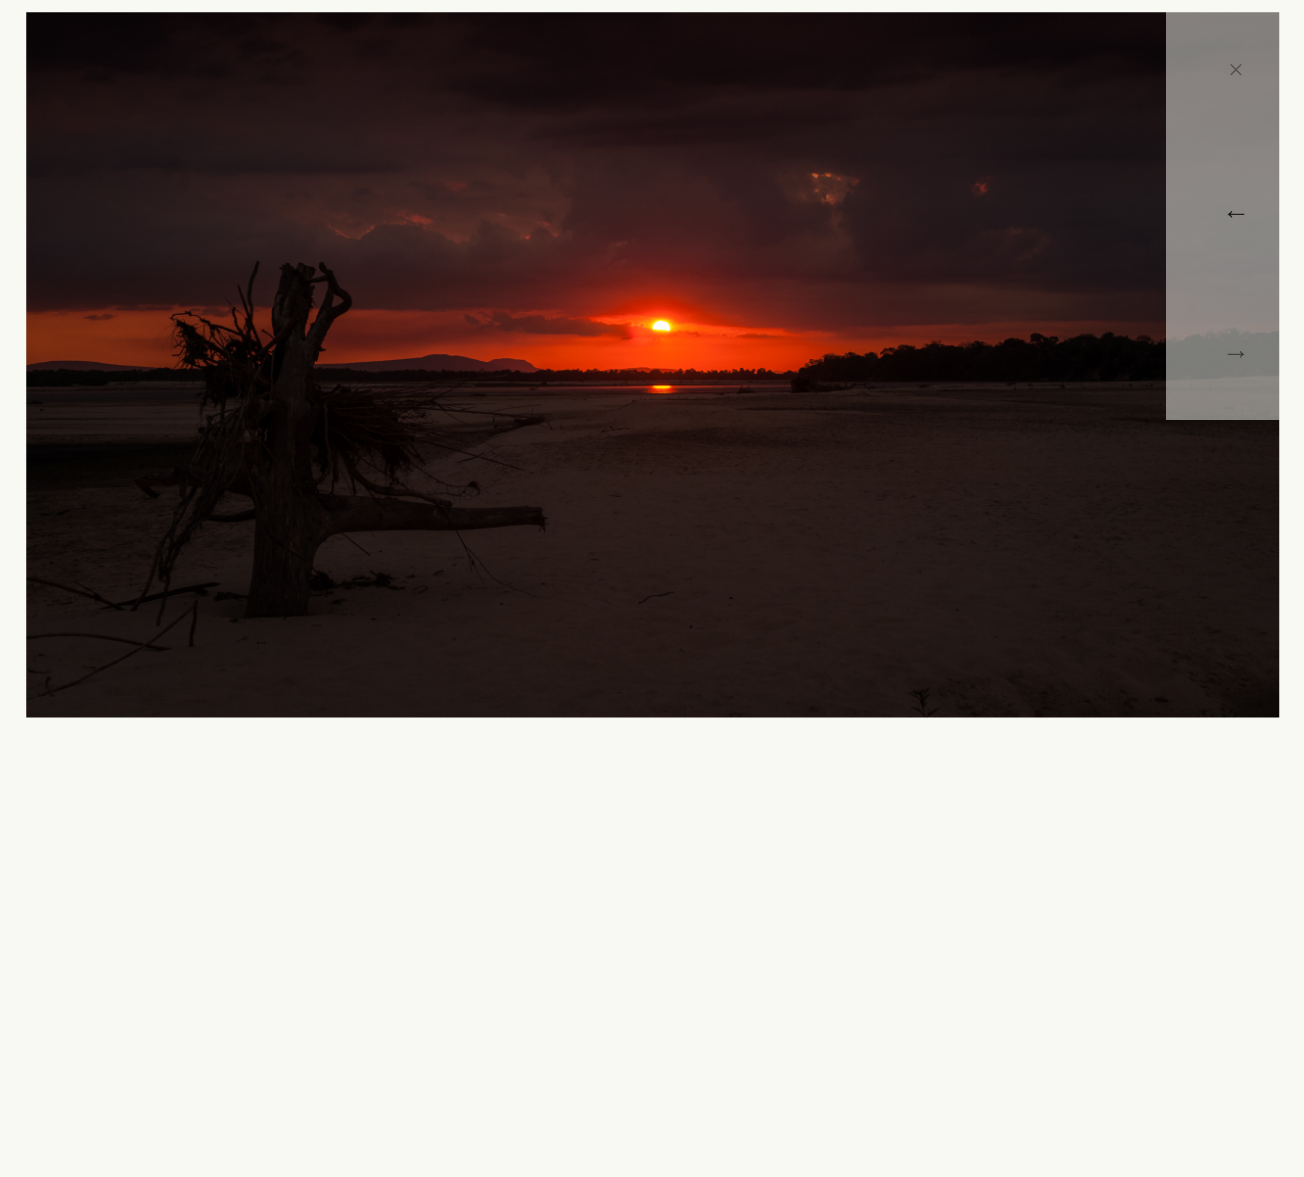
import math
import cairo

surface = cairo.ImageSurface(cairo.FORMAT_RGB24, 1304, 1177)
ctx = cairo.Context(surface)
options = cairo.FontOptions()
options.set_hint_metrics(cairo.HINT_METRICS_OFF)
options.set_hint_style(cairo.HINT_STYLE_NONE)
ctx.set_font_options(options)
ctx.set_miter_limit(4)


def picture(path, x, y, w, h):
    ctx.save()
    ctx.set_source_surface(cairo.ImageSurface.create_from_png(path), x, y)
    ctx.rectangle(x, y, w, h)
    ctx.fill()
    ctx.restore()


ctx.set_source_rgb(0.976, 0.973, 0.953)
ctx.paint()
picture("img1.png", 26, 12, 1254, 706)
ctx.set_source_rgba(0.976, 0.973, 0.953, 0.5)
ctx.rectangle(1166, 12, 114, 128)
ctx.fill()
ctx.select_font_face("Liberation Serif")
ctx.set_font_size(28)
ctx.set_source_rgb(0.325, 0.31, 0.29)
ctx.move_to(1228, 79)
ctx.show_text("×")
ctx.set_source_rgba(0.976, 0.973, 0.953, 0.5)
ctx.rectangle(1166, 140, 114, 140)
ctx.fill()
ctx.set_source_rgb(0.114, 0.098, 0.086)
ctx.move_to(1222, 219)
ctx.show_text("←")
ctx.set_source_rgba(0.976, 0.973, 0.953, 0.5)
ctx.rectangle(1166, 280, 114, 140)
ctx.fill()
ctx.set_source_rgb(0.247, 0.243, 0.239)
ctx.move_to(1222, 359)
ctx.show_text("→")
surface.write_to_png("page.png")
